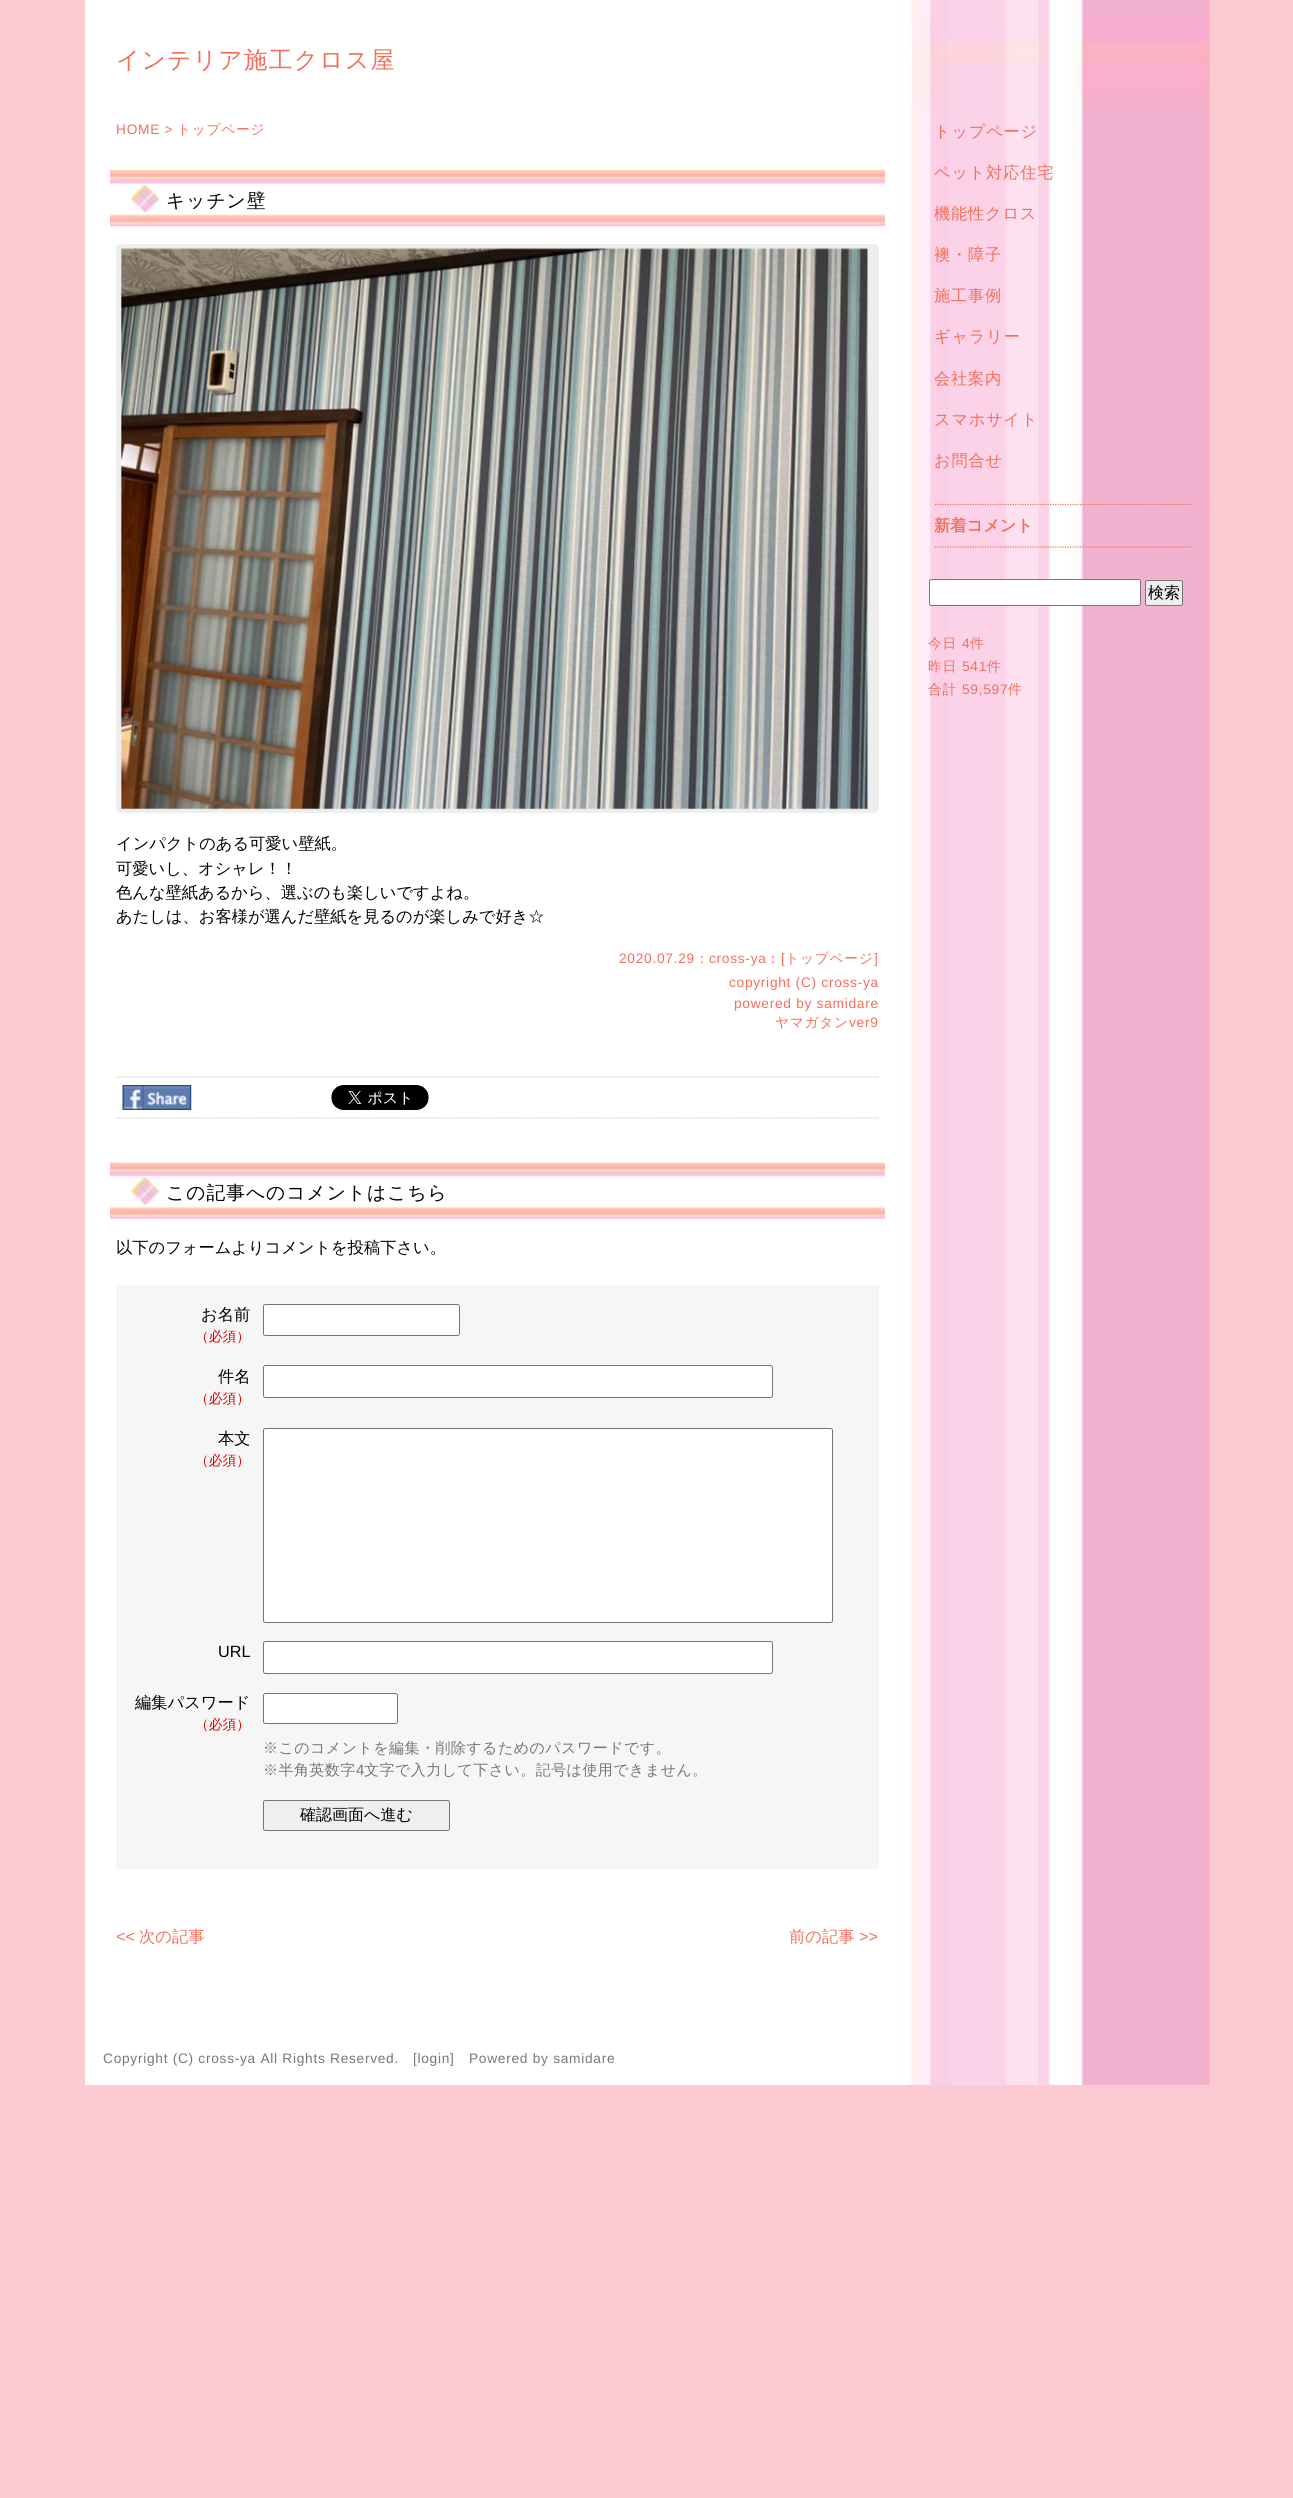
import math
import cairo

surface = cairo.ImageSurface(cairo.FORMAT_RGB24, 1293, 2498)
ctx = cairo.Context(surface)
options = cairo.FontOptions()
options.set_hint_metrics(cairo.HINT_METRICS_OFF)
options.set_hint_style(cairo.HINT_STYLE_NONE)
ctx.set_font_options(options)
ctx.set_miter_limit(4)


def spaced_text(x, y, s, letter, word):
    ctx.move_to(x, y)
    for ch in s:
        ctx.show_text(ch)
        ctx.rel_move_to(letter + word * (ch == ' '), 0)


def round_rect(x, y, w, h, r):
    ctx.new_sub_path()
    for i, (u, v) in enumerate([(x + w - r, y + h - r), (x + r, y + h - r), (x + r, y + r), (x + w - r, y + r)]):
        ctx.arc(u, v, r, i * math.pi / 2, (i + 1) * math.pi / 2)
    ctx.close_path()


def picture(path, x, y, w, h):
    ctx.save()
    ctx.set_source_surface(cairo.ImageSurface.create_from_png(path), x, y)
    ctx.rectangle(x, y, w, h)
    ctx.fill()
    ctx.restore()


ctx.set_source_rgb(0.988, 0.792, 0.824)
ctx.paint()
picture("img1.png", 85, 0, 1125, 2085)
picture("img2.png", 905, 18, 305, 90)
ctx.select_font_face("WenQuanYi Zen Hei Medium")
ctx.set_font_size(23.75)
ctx.set_source_rgb(0.957, 0.435, 0.353)
spaced_text(116, 68, "インテリア施工クロス屋", 1.25, 0)
ctx.select_font_face("Liberation Sans")
ctx.set_font_size(13.75)
spaced_text(116, 134, "HOME >", 0.7, 0)
ctx.select_font_face("WenQuanYi Zen Hei Medium")
spaced_text(177, 134, "トップページ", 0.7, 0)
picture("img3.png", 110, 170, 775, 57)
ctx.set_font_size(18.75)
ctx.set_source_rgb(0, 0, 0)
spaced_text(166, 207, "キッチン壁", 1, 0)
ctx.set_source_rgb(0.933, 0.933, 0.933)
round_rect(118, 246, 759, 565, 3)
ctx.fill_preserve()
ctx.set_line_width(4)
ctx.stroke()
picture("img4.png", 121, 248, 748, 562)
ctx.set_font_size(16.25)
ctx.set_source_rgb(0, 0, 0)
ctx.move_to(116, 849)
ctx.show_text("インパクトのある可愛い壁紙。")
ctx.move_to(116, 874)
ctx.show_text("可愛いし、オシャレ！！")
ctx.move_to(116, 898)
ctx.show_text("色んな壁紙あるから、選ぶのも楽しいですよね。")
ctx.move_to(116, 922)
ctx.show_text("あたしは、お客様が選んだ壁紙を見るのが楽しみで好き☆")
ctx.select_font_face("Liberation Sans")
ctx.set_font_size(13.75)
ctx.set_source_rgb(0.957, 0.435, 0.353)
spaced_text(619, 963, "2020.07.29", 0.7, 0)
ctx.select_font_face("WenQuanYi Zen Hei Medium")
spaced_text(766, 963, "： トップページ", 0.7, 0)
spaced_text(695, 963, "：", 0.7, 0)
ctx.select_font_face("Liberation Sans")
spaced_text(709, 963, "cross-ya", 0.7, 0)
spaced_text(781, 963, "[", 0.7, 0)
spaced_text(874, 963, "]", 0.7, 0)
spaced_text(729, 987, "copyright (C) cross-ya", 0.7, 0)
spaced_text(734, 1008, "powered by samidare", 0.7, 0)
ctx.select_font_face("WenQuanYi Zen Hei Medium")
spaced_text(775, 1027, "ヤマガタン", 0.7, 0)
ctx.select_font_face("Liberation Sans")
spaced_text(849, 1027, "ver9", 0.7, 0)
ctx.new_path()
ctx.move_to(116, 1077)
ctx.line_to(879, 1077)
ctx.set_source_rgb(0.8, 0.8, 0.8)
ctx.set_line_width(1.2)
ctx.set_dash([1.25, 1.25])
ctx.stroke()
ctx.new_path()
ctx.move_to(116, 1118)
ctx.line_to(879, 1118)
ctx.stroke()
picture("img5.png", 122, 1085, 70, 25)
picture("img6.png", 331, 1085, 98, 25)
picture("img7.png", 110, 1162, 775, 57)
ctx.select_font_face("WenQuanYi Zen Hei Medium")
ctx.set_font_size(18.75)
ctx.set_source_rgb(0, 0, 0)
spaced_text(166, 1199, "この記事へのコメントはこちら", 1, 0)
ctx.set_font_size(16.25)
ctx.move_to(116, 1253)
ctx.show_text("以下のフォームよりコメントを投稿下さい。")
ctx.set_source_rgb(0.961, 0.961, 0.961)
ctx.rectangle(116, 1285, 763, 584)
ctx.fill()
ctx.set_source_rgb(0, 0, 0)
ctx.move_to(201, 1320)
ctx.show_text("お名前")
ctx.set_font_size(13.75)
ctx.set_source_rgb(0.867, 0, 0)
ctx.move_to(195, 1341)
ctx.show_text("（必須）")
ctx.set_source_rgb(1, 1, 1)
round_rect(263.5, 1304.5, 196, 31, 2)
ctx.fill_preserve()
ctx.set_source_rgb(0.463, 0.463, 0.463)
ctx.set_line_width(1)
ctx.set_dash([])
ctx.stroke()
ctx.set_font_size(16.25)
ctx.set_source_rgb(0, 0, 0)
ctx.move_to(218, 1382)
ctx.show_text("件名")
ctx.set_font_size(13.75)
ctx.set_source_rgb(0.867, 0, 0)
ctx.move_to(195, 1403)
ctx.show_text("（必須）")
ctx.set_source_rgb(1, 1, 1)
round_rect(263.5, 1365.5, 509, 32, 2)
ctx.fill_preserve()
ctx.set_source_rgb(0.463, 0.463, 0.463)
ctx.stroke()
ctx.set_font_size(16.25)
ctx.set_source_rgb(0, 0, 0)
ctx.move_to(218, 1444)
ctx.show_text("本文")
ctx.set_font_size(13.75)
ctx.set_source_rgb(0.867, 0, 0)
ctx.move_to(195, 1465)
ctx.show_text("（必須）")
ctx.set_source_rgb(1, 1, 1)
round_rect(263.5, 1428.5, 569, 194, 2)
ctx.fill_preserve()
ctx.set_source_rgb(0.463, 0.463, 0.463)
ctx.stroke()
ctx.select_font_face("Liberation Sans")
ctx.set_font_size(16.25)
ctx.set_source_rgb(0, 0, 0)
ctx.move_to(218, 1657)
ctx.show_text("URL")
ctx.set_source_rgb(1, 1, 1)
round_rect(263.5, 1641.5, 509, 32, 2)
ctx.fill_preserve()
ctx.set_source_rgb(0.463, 0.463, 0.463)
ctx.stroke()
ctx.select_font_face("WenQuanYi Zen Hei Medium")
ctx.set_source_rgb(0, 0, 0)
ctx.move_to(135, 1708)
ctx.show_text("編集パスワード")
ctx.set_font_size(13.75)
ctx.set_source_rgb(0.867, 0, 0)
ctx.move_to(195, 1729)
ctx.show_text("（必須）")
ctx.set_source_rgb(1, 1, 1)
round_rect(263.5, 1693.5, 134, 30, 2)
ctx.fill_preserve()
ctx.set_source_rgb(0.463, 0.463, 0.463)
ctx.stroke()
ctx.set_font_size(15)
ctx.set_source_rgb(0.467, 0.467, 0.467)
spaced_text(263, 1753, "※このコメントを編集・削除するためのパスワードです。", 0.45, 0)
spaced_text(263, 1775, "※半角英数字", 0.45, 0)
ctx.select_font_face("Liberation Sans")
spaced_text(356, 1775, "4", 0.45, 0)
ctx.select_font_face("WenQuanYi Zen Hei Medium")
spaced_text(364, 1775, "文字で入力して下さい。記号は使用できません。", 0.45, 0)
ctx.set_source_rgb(0.937, 0.937, 0.937)
round_rect(263.5, 1800.5, 186, 30, 2)
ctx.fill_preserve()
ctx.set_source_rgb(0.463, 0.463, 0.463)
ctx.stroke()
ctx.set_font_size(16)
ctx.set_source_rgb(0, 0, 0)
ctx.move_to(300, 1820)
ctx.show_text("確認画面へ進む")
ctx.select_font_face("Liberation Sans")
ctx.set_font_size(16.25)
ctx.set_source_rgb(0.957, 0.435, 0.353)
ctx.move_to(116, 1942)
ctx.show_text("<<")
ctx.select_font_face("WenQuanYi Zen Hei Medium")
ctx.move_to(139, 1942)
ctx.show_text("次の記事")
ctx.move_to(789, 1942)
ctx.show_text("前の記事")
ctx.select_font_face("Liberation Sans")
ctx.move_to(859, 1942)
ctx.show_text(">>")
ctx.select_font_face("WenQuanYi Zen Hei Medium")
spaced_text(934, 137, "トップページ", 0.75, 0)
spaced_text(934, 178, "ペット対応住宅", 0.75, 0)
spaced_text(934, 219, "機能性クロス", 0.75, 0)
spaced_text(934, 260, "襖・障子", 0.75, 0)
spaced_text(934, 301, "施工事例", 0.75, 0)
spaced_text(934, 342, "ギャラリー", 0.75, 0)
spaced_text(934, 384, "会社案内", 0.75, 0)
spaced_text(934, 425, "スマホサイト", 0.75, 0)
spaced_text(934, 466, "お問合せ", 0.75, 0)
ctx.new_path()
ctx.move_to(935, 504.5)
ctx.line_to(1191, 504.5)
ctx.set_line_width(1.2)
ctx.set_dash([1.25, 1.25])
ctx.stroke()
ctx.new_path()
ctx.move_to(935, 547)
ctx.line_to(1191, 547)
ctx.stroke()
ctx.select_font_face("WenQuanYi Zen Hei", cairo.FONT_SLANT_NORMAL, cairo.FONT_WEIGHT_BOLD)
ctx.move_to(934, 531)
ctx.show_text("新着コメント")
ctx.set_source_rgb(1, 1, 1)
round_rect(929.5, 579.5, 211, 26, 2)
ctx.fill_preserve()
ctx.set_source_rgb(0.463, 0.463, 0.463)
ctx.set_line_width(1)
ctx.set_dash([])
ctx.stroke()
ctx.set_source_rgb(0.937, 0.937, 0.937)
round_rect(1145.5, 580.5, 37, 25, 2)
ctx.fill_preserve()
ctx.set_source_rgb(0.463, 0.463, 0.463)
ctx.stroke()
ctx.select_font_face("WenQuanYi Zen Hei Medium")
ctx.set_font_size(16)
ctx.set_source_rgb(0, 0, 0)
ctx.move_to(1148, 598)
ctx.show_text("検索")
ctx.set_font_size(13.75)
ctx.set_source_rgb(0.957, 0.435, 0.353)
spaced_text(928, 648, "今日", 0.7, 0)
ctx.select_font_face("Liberation Sans")
spaced_text(962, 648, "4", 0.7, 0)
ctx.select_font_face("WenQuanYi Zen Hei Medium")
spaced_text(970, 648, "件", 0.7, 0)
spaced_text(928, 671, "昨日", 0.7, 0)
ctx.select_font_face("Liberation Sans")
spaced_text(962, 671, "541", 0.7, 0)
ctx.select_font_face("WenQuanYi Zen Hei Medium")
spaced_text(987, 671, "件", 0.7, 0)
spaced_text(928, 694, "合計", 0.7, 0)
ctx.select_font_face("Liberation Sans")
spaced_text(962, 694, "59,597", 0.7, 0)
ctx.select_font_face("WenQuanYi Zen Hei Medium")
spaced_text(1008, 694, "件", 0.7, 0)
ctx.select_font_face("Liberation Sans")
ctx.set_source_rgb(0.467, 0.467, 0.467)
spaced_text(103, 2063, "Copyright (C) cross-ya All Rights Reserved.", 0.7, 0)
spaced_text(413, 2063, "[login]", 0.7, 0)
spaced_text(469, 2063, "Powered by samidare", 0.7, 0)
surface.write_to_png("page.png")
